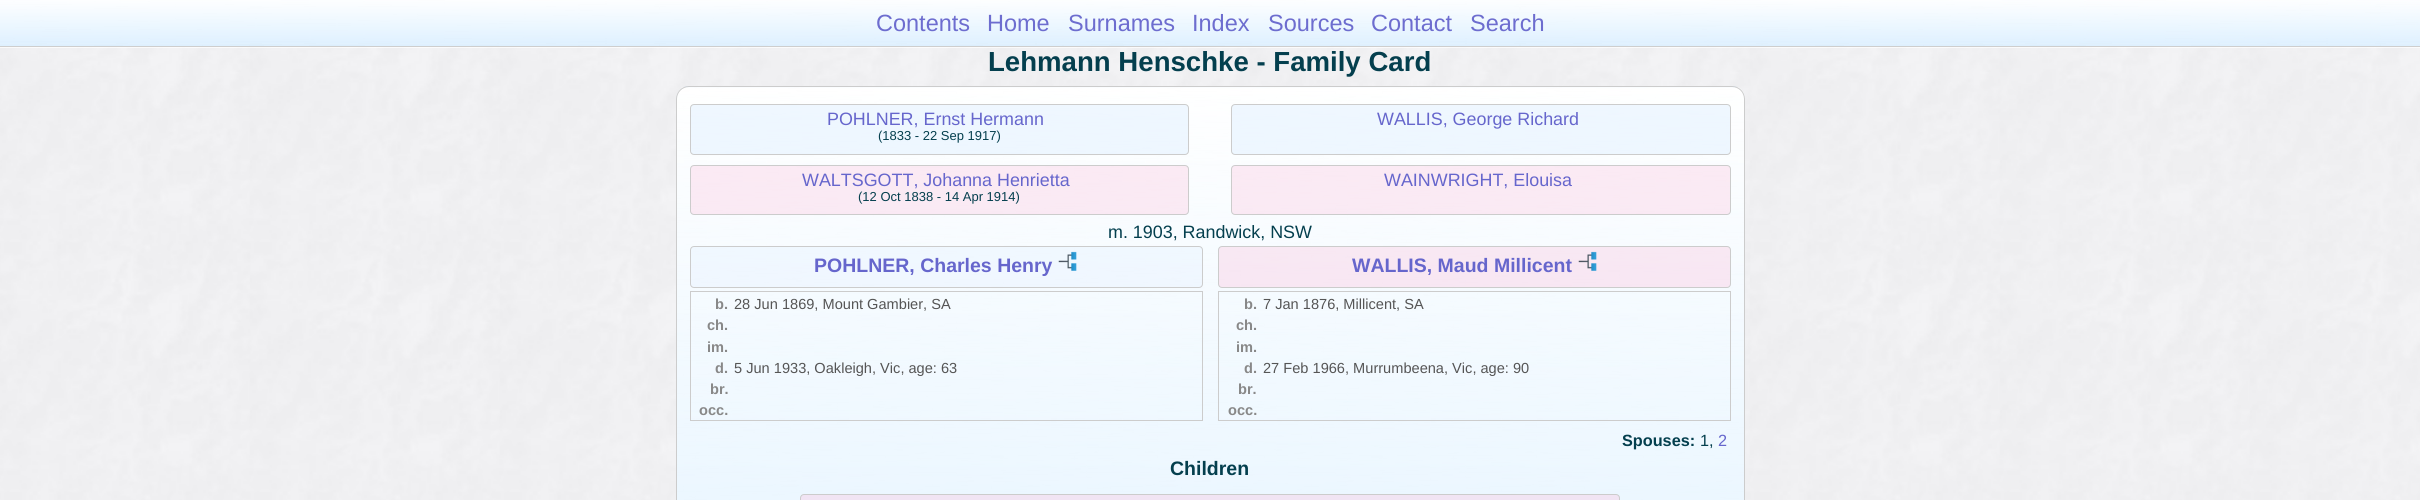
import math
import cairo

surface = cairo.ImageSurface(cairo.FORMAT_RGB24, 2420, 500)
ctx = cairo.Context(surface)
options = cairo.FontOptions()
options.set_hint_metrics(cairo.HINT_METRICS_OFF)
options.set_hint_style(cairo.HINT_STYLE_NONE)
ctx.set_font_options(options)
ctx.set_miter_limit(4)


def round_rect(x, y, w, h, r):
    ctx.new_sub_path()
    for i, (u, v) in enumerate([(x + w - r, y + h - r), (x + r, y + h - r), (x + r, y + r), (x + w - r, y + r)]):
        ctx.arc(u, v, r, i * math.pi / 2, (i + 1) * math.pi / 2)
    ctx.close_path()


def picture(path, x, y, w, h):
    ctx.save()
    ctx.set_source_surface(cairo.ImageSurface.create_from_png(path), x, y)
    ctx.rectangle(x, y, w, h)
    ctx.fill()
    ctx.restore()


ctx.set_source_rgb(1, 1, 1)
ctx.paint()
picture("img1.png", 0, 0, 2420, 500)
ctx.set_source_rgba(0.871, 0.945, 1, 0.95)
ctx.rectangle(0, 0, 2420, 46)
ctx.fill()
picture("img2.png", 0, 0, 2420, 48)
ctx.rectangle(0, 0, 2420, 43)
ctx.fill()
picture("img3.png", 0, 0, 2420, 48)
ctx.set_source_rgb(0.808, 0.808, 0.808)
ctx.rectangle(0, 46, 2420, 1)
ctx.fill()
ctx.select_font_face("Liberation Sans")
ctx.set_font_size(23.5)
ctx.set_source_rgb(0.427, 0.427, 0.812)
ctx.move_to(876, 31)
ctx.show_text("Contents")
ctx.move_to(987, 31)
ctx.show_text("Home")
ctx.move_to(1068, 31)
ctx.show_text("Surnames")
ctx.move_to(1192, 31)
ctx.show_text("Index")
ctx.move_to(1268, 31)
ctx.show_text("Sources")
ctx.move_to(1371, 31)
ctx.show_text("Contact")
ctx.move_to(1470, 31)
ctx.show_text("Search")
ctx.select_font_face("Liberation Sans", cairo.FONT_SLANT_NORMAL, cairo.FONT_WEIGHT_BOLD)
ctx.set_font_size(27.6)
ctx.set_source_rgb(0.016, 0.247, 0.306)
ctx.move_to(988, 71)
ctx.show_text("Lehmann Henschke - Family Card")
ctx.set_source_rgb(0.871, 0.945, 1)
round_rect(676, 86, 1069, 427, 13)
ctx.fill()
picture("img4.png", 676, 87, 1069, 413)
round_rect(676.5, 86.5, 1068, 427, 12.5)
ctx.set_source_rgb(0.8, 0.8, 0.8)
ctx.set_line_width(1)
ctx.stroke()
ctx.set_source_rgba(0.878, 0.937, 0.996, 0.51)
round_rect(690.5, 104.5, 498, 50, 3.5)
ctx.fill_preserve()
ctx.set_source_rgb(0.8, 0.8, 0.8)
ctx.stroke()
ctx.select_font_face("Liberation Sans")
ctx.set_font_size(17.9)
ctx.set_source_rgb(0.4, 0.4, 0.8)
ctx.move_to(827, 125)
ctx.show_text("POHLNER, Ernst Hermann")
ctx.set_font_size(13)
ctx.set_source_rgb(0.016, 0.247, 0.306)
ctx.move_to(878, 140)
ctx.show_text("(1833 - 22 Sep 1917)")
ctx.set_source_rgba(0.878, 0.937, 0.996, 0.51)
round_rect(1231.5, 104.5, 499, 50, 3.5)
ctx.fill_preserve()
ctx.set_source_rgb(0.8, 0.8, 0.8)
ctx.stroke()
ctx.set_font_size(17.9)
ctx.set_source_rgb(0.4, 0.4, 0.8)
ctx.move_to(1377, 125)
ctx.show_text("WALLIS, George Richard")
ctx.set_source_rgba(0.988, 0.718, 0.839, 0.28)
round_rect(690.5, 165.5, 498, 49, 3.5)
ctx.fill_preserve()
ctx.set_source_rgb(0.8, 0.8, 0.8)
ctx.stroke()
ctx.set_source_rgb(0.4, 0.4, 0.8)
ctx.move_to(802, 186)
ctx.show_text("WALTSGOTT, Johanna Henrietta")
ctx.set_font_size(13)
ctx.set_source_rgb(0.016, 0.247, 0.306)
ctx.move_to(858, 201)
ctx.show_text("(12 Oct 1838 - 14 Apr 1914)")
ctx.set_source_rgba(0.988, 0.718, 0.839, 0.28)
round_rect(1231.5, 165.5, 499, 49, 3.5)
ctx.fill_preserve()
ctx.set_source_rgb(0.8, 0.8, 0.8)
ctx.stroke()
ctx.set_font_size(17.9)
ctx.set_source_rgb(0.4, 0.4, 0.8)
ctx.move_to(1384, 186)
ctx.show_text("WAINWRIGHT, Elouisa")
ctx.set_source_rgb(0.016, 0.247, 0.306)
ctx.move_to(1108, 238)
ctx.show_text("m. 1903, Randwick, NSW")
ctx.set_source_rgba(0.878, 0.937, 0.996, 0.3)
round_rect(690.5, 246.5, 512, 41, 3.5)
ctx.fill_preserve()
ctx.set_source_rgb(0.8, 0.8, 0.8)
ctx.stroke()
ctx.select_font_face("Liberation Sans", cairo.FONT_SLANT_NORMAL, cairo.FONT_WEIGHT_BOLD)
ctx.set_font_size(19.5)
ctx.set_source_rgb(0.4, 0.4, 0.8)
ctx.move_to(814, 272)
ctx.show_text("POHLNER, Charles Henry")
picture("img5.png", 1058, 251, 19, 20)
ctx.set_source_rgba(0.988, 0.718, 0.839, 0.3)
round_rect(1218.5, 246.5, 512, 41, 3.5)
ctx.fill_preserve()
ctx.set_source_rgb(0.8, 0.8, 0.8)
ctx.stroke()
ctx.set_source_rgb(0.4, 0.4, 0.8)
ctx.move_to(1352, 272)
ctx.show_text("WALLIS, Maud Millicent")
picture("img6.png", 1578, 251, 19, 20)
ctx.rectangle(690.5, 291.5, 512, 129)
ctx.set_source_rgb(0.8, 0.8, 0.8)
ctx.stroke()
ctx.set_font_size(14.6)
ctx.set_source_rgb(0.533, 0.533, 0.533)
ctx.move_to(715, 309)
ctx.show_text("b.")
ctx.select_font_face("Liberation Sans")
ctx.set_source_rgb(0.333, 0.333, 0.333)
ctx.move_to(734, 309)
ctx.show_text("28 Jun 1869, Mount Gambier, SA")
ctx.select_font_face("Liberation Sans", cairo.FONT_SLANT_NORMAL, cairo.FONT_WEIGHT_BOLD)
ctx.set_source_rgb(0.533, 0.533, 0.533)
ctx.move_to(707, 330)
ctx.show_text("ch.")
ctx.move_to(707, 352)
ctx.show_text("im.")
ctx.move_to(715, 373)
ctx.show_text("d.")
ctx.select_font_face("Liberation Sans")
ctx.set_source_rgb(0.333, 0.333, 0.333)
ctx.move_to(734, 373)
ctx.show_text("5 Jun 1933, Oakleigh, Vic, age: 63")
ctx.select_font_face("Liberation Sans", cairo.FONT_SLANT_NORMAL, cairo.FONT_WEIGHT_BOLD)
ctx.set_source_rgb(0.533, 0.533, 0.533)
ctx.move_to(710, 394)
ctx.show_text("br.")
ctx.move_to(699, 415)
ctx.show_text("occ.")
ctx.rectangle(1218.5, 291.5, 512, 129)
ctx.set_source_rgb(0.8, 0.8, 0.8)
ctx.stroke()
ctx.set_source_rgb(0.533, 0.533, 0.533)
ctx.move_to(1244, 309)
ctx.show_text("b.")
ctx.select_font_face("Liberation Sans")
ctx.set_source_rgb(0.333, 0.333, 0.333)
ctx.move_to(1263, 309)
ctx.show_text("7 Jan 1876, Millicent, SA")
ctx.select_font_face("Liberation Sans", cairo.FONT_SLANT_NORMAL, cairo.FONT_WEIGHT_BOLD)
ctx.set_source_rgb(0.533, 0.533, 0.533)
ctx.move_to(1236, 330)
ctx.show_text("ch.")
ctx.move_to(1236, 352)
ctx.show_text("im.")
ctx.move_to(1244, 373)
ctx.show_text("d.")
ctx.select_font_face("Liberation Sans")
ctx.set_source_rgb(0.333, 0.333, 0.333)
ctx.move_to(1263, 373)
ctx.show_text("27 Feb 1966, Murrumbeena, Vic, age: 90")
ctx.select_font_face("Liberation Sans", cairo.FONT_SLANT_NORMAL, cairo.FONT_WEIGHT_BOLD)
ctx.set_source_rgb(0.533, 0.533, 0.533)
ctx.move_to(1238, 394)
ctx.show_text("br.")
ctx.move_to(1228, 415)
ctx.show_text("occ.")
ctx.set_font_size(16.25)
ctx.set_source_rgb(0.016, 0.247, 0.306)
ctx.move_to(1622, 446)
ctx.show_text("Spouses:")
ctx.select_font_face("Liberation Sans")
ctx.move_to(1700, 446)
ctx.show_text("1,")
ctx.set_source_rgb(0.4, 0.4, 0.8)
ctx.move_to(1718, 446)
ctx.show_text("2")
ctx.select_font_face("Liberation Sans", cairo.FONT_SLANT_NORMAL, cairo.FONT_WEIGHT_BOLD)
ctx.set_font_size(19.5)
ctx.set_source_rgb(0.016, 0.247, 0.306)
ctx.move_to(1170, 475)
ctx.show_text("Children")
ctx.set_source_rgb(0.945, 0.894, 0.953)
round_rect(800.5, 494.5, 819, 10, 3.5)
ctx.fill_preserve()
ctx.set_source_rgb(0.8, 0.8, 0.8)
ctx.stroke()
surface.write_to_png("page.png")
